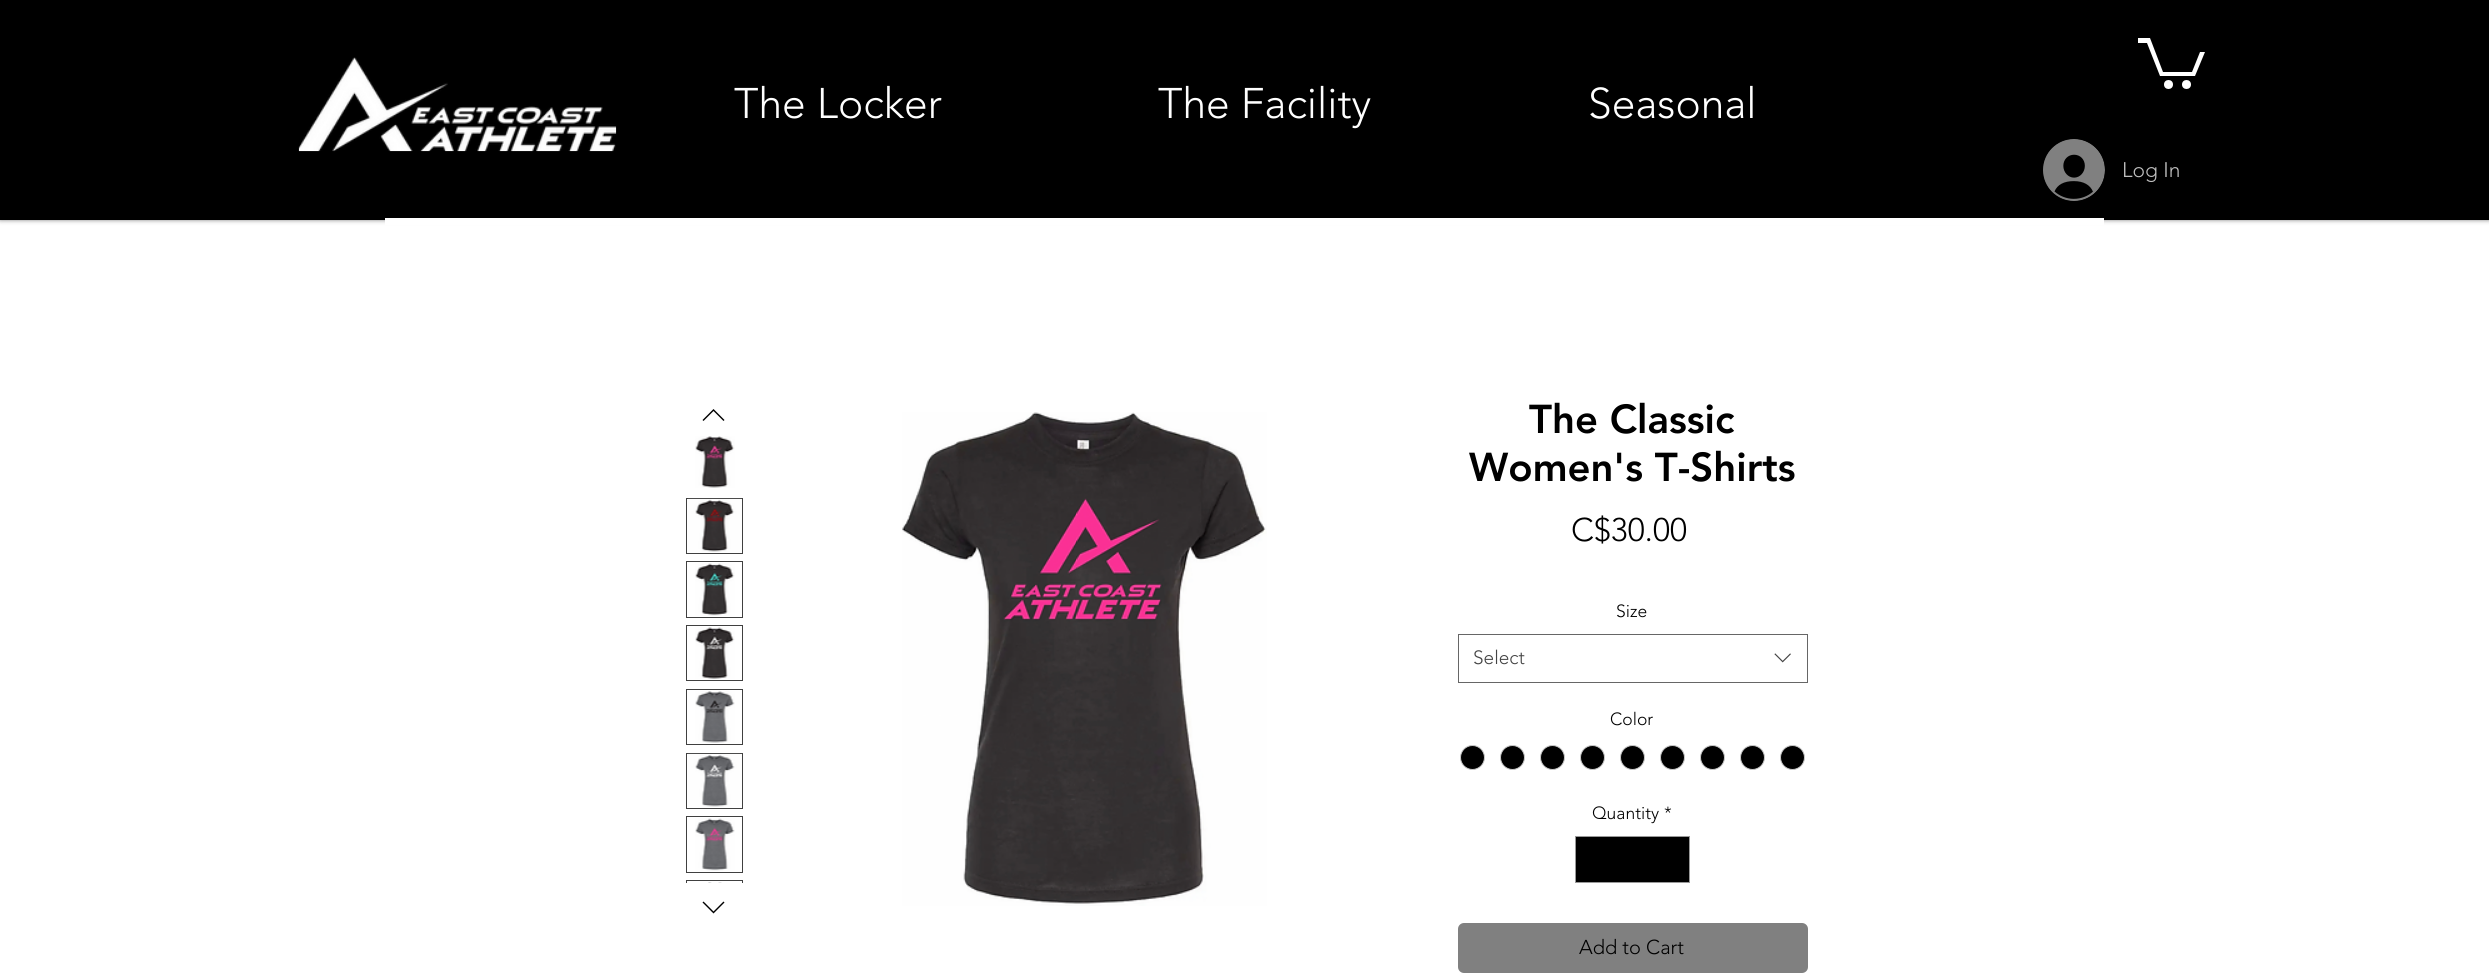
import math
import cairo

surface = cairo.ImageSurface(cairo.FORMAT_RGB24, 2489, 973)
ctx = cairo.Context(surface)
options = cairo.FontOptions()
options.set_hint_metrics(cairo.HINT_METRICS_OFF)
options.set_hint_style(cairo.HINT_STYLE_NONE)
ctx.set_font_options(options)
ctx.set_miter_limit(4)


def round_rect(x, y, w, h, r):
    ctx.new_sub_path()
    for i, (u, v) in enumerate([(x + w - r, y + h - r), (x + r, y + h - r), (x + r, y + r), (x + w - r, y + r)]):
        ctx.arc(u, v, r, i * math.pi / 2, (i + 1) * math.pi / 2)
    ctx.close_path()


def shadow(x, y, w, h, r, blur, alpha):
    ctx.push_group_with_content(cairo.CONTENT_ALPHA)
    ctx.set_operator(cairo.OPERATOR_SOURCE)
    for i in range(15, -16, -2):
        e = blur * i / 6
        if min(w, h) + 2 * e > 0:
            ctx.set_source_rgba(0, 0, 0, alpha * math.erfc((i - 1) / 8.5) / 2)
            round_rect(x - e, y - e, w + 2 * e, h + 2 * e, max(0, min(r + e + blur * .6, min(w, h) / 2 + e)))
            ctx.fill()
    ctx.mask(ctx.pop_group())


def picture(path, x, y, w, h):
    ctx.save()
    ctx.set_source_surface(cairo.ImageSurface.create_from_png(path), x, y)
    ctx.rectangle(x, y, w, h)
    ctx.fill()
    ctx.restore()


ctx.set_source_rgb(1, 1, 1)
ctx.paint()
ctx.set_source_rgb(0, 0, 0)
shadow(0, 0, 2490, 218, 0, 3, 1)
ctx.set_source_rgb(0, 0, 0)
ctx.rectangle(0, 0, 2489, 220)
ctx.fill()
picture("img1.png", 298, 57, 319, 95)
ctx.select_font_face("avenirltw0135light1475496 Light")
ctx.set_font_size(42.5)
ctx.set_source_rgb(1, 1, 1)
ctx.move_to(734, 118)
ctx.show_text("The Locker")
ctx.move_to(1158, 118)
ctx.show_text("The Facility")
ctx.move_to(1588, 118)
ctx.show_text("Seasonal")
ctx.new_path()
ctx.move_to(2205, 52)
ctx.line_to(2195, 76)
ctx.line_to(2160, 76)
ctx.line_to(2147, 43)
ctx.line_to(2138, 43)
ctx.line_to(2138, 38)
ctx.line_to(2150, 38)
ctx.line_to(2163, 72)
ctx.line_to(2192, 72)
ctx.line_to(2200, 52)
ctx.fill()
ctx.arc(2186.5, 84.5, 4.5, 0, 2 * math.pi)
ctx.fill()
ctx.arc(2168.5, 84.5, 4.5, 0, 2 * math.pi)
ctx.fill()
picture("img2.png", 2043, 139, 62, 62)
ctx.set_font_size(21)
ctx.set_source_rgb(0.749, 0.749, 0.749)
ctx.move_to(2122, 177)
ctx.show_text("Log In")
ctx.set_source_rgb(1, 1, 1)
ctx.rectangle(385, 218, 1719, 7)
ctx.fill()
ctx.set_source_rgb(0, 0, 0)
ctx.set_fill_rule(cairo.FILL_RULE_EVEN_ODD)
ctx.new_path()
ctx.move_to(713.5, 409)
ctx.line_to(724.5, 420)
ctx.line_to(723.5, 421)
ctx.line_to(713.5, 411)
ctx.line_to(703.5, 421)
ctx.line_to(702.5, 420)
ctx.close_path()
ctx.fill()
picture("img3.png", 695, 436, 40, 52)
ctx.rectangle(686.5, 498.5, 56, 55)
ctx.set_source_rgb(0.251, 0.251, 0.251)
ctx.set_line_width(1)
ctx.stroke()
picture("img4.png", 688, 498, 54, 54)
ctx.rectangle(686.5, 561.5, 56, 56)
ctx.stroke()
picture("img5.png", 695, 563, 40, 53)
ctx.rectangle(686.5, 625.5, 56, 55)
ctx.stroke()
picture("img6.png", 695, 627, 40, 52)
ctx.rectangle(686.5, 689.5, 56, 55)
ctx.stroke()
picture("img7.png", 695, 691, 40, 52)
ctx.rectangle(686.5, 753.5, 56, 55)
ctx.stroke()
picture("img8.png", 688, 753, 54, 54)
ctx.rectangle(686.5, 816.5, 56, 56)
ctx.stroke()
picture("img9.png", 695, 818, 40, 53)
ctx.set_source_rgb(0, 0, 0)
ctx.new_path()
ctx.move_to(723.5, 901.5)
ctx.line_to(724.5, 902.5)
ctx.line_to(713.5, 913.5)
ctx.line_to(702.5, 902.5)
ctx.line_to(703.5, 901.5)
ctx.line_to(713.5, 911.5)
ctx.close_path()
ctx.fill()
ctx.save()
ctx.set_fill_rule(cairo.FILL_RULE_WINDING)
ctx.rectangle(681, 429, 67, 454)
ctx.clip()
ctx.rectangle(686.5, 880.5, 56, 55)
ctx.set_source_rgb(0.251, 0.251, 0.251)
ctx.stroke()
ctx.restore()
picture("img10.png", 708, 882, 14, 1)
picture("img11.png", 902, 412, 365, 494)
ctx.select_font_face("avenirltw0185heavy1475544 Black")
ctx.set_font_size(40)
ctx.move_to(1529, 433)
ctx.show_text("The Classic")
ctx.move_to(1469, 481)
ctx.show_text("Women's T-Shirts")
ctx.select_font_face("avenirltw0135light1475496 Light")
ctx.set_font_size(32.5)
ctx.move_to(1571, 541)
ctx.show_text("C$30.00")
ctx.set_font_size(17.5)
ctx.move_to(1616, 617)
ctx.show_text("Size")
ctx.rectangle(1458.5, 634.5, 349, 48)
ctx.set_source_rgb(0.4, 0.4, 0.4)
ctx.stroke()
ctx.set_font_size(19)
ctx.set_source_rgb(0.267, 0.267, 0.267)
ctx.move_to(1473, 664)
ctx.show_text("Select")
picture("img12.png", 1774, 653, 17, 10)
ctx.set_font_size(17.5)
ctx.set_source_rgb(0, 0, 0)
ctx.move_to(1610, 725)
ctx.show_text("Color")
ctx.new_path()
ctx.arc(1472.5, 757.5, 12, 0, 2 * math.pi)
ctx.fill_preserve()
ctx.set_source_rgb(0.788, 0.788, 0.788)
ctx.stroke()
ctx.set_source_rgb(0, 0, 0)
ctx.arc(1512.5, 757.5, 12, 0, 2 * math.pi)
ctx.fill_preserve()
ctx.set_source_rgb(0.788, 0.788, 0.788)
ctx.stroke()
ctx.set_source_rgb(0, 0, 0)
ctx.arc(1552.5, 757.5, 12, 0, 2 * math.pi)
ctx.fill_preserve()
ctx.set_source_rgb(0.788, 0.788, 0.788)
ctx.stroke()
ctx.set_source_rgb(0, 0, 0)
ctx.arc(1592.5, 757.5, 12, 0, 2 * math.pi)
ctx.fill_preserve()
ctx.set_source_rgb(0.788, 0.788, 0.788)
ctx.stroke()
ctx.set_source_rgb(0, 0, 0)
ctx.arc(1632.5, 757.5, 12, 0, 2 * math.pi)
ctx.fill_preserve()
ctx.set_source_rgb(0.788, 0.788, 0.788)
ctx.stroke()
ctx.set_source_rgb(0, 0, 0)
ctx.arc(1672.5, 757.5, 12, 0, 2 * math.pi)
ctx.fill_preserve()
ctx.set_source_rgb(0.788, 0.788, 0.788)
ctx.stroke()
ctx.set_source_rgb(0, 0, 0)
ctx.arc(1712.5, 757.5, 12, 0, 2 * math.pi)
ctx.fill_preserve()
ctx.set_source_rgb(0.788, 0.788, 0.788)
ctx.stroke()
ctx.set_source_rgb(0, 0, 0)
ctx.arc(1752.5, 757.5, 12, 0, 2 * math.pi)
ctx.fill_preserve()
ctx.set_source_rgb(0.788, 0.788, 0.788)
ctx.stroke()
ctx.set_source_rgb(0, 0, 0)
ctx.arc(1792.5, 757.5, 12, 0, 2 * math.pi)
ctx.fill_preserve()
ctx.set_source_rgb(0.788, 0.788, 0.788)
ctx.stroke()
ctx.set_source_rgb(0, 0, 0)
ctx.move_to(1592, 819)
ctx.show_text("Quantity")
ctx.move_to(1664, 819)
ctx.show_text("*")
ctx.rectangle(1575.5, 836.5, 114, 46)
ctx.fill_preserve()
ctx.set_source_rgb(0.6, 0.6, 0.6)
ctx.stroke()
ctx.set_source_rgb(0.502, 0.502, 0.502)
round_rect(1458, 923, 350, 50, 6)
ctx.fill()
ctx.set_font_size(20)
ctx.set_source_rgb(0, 0, 0)
ctx.move_to(1579, 954)
ctx.show_text("Add to Cart")
surface.write_to_png("page.png")
